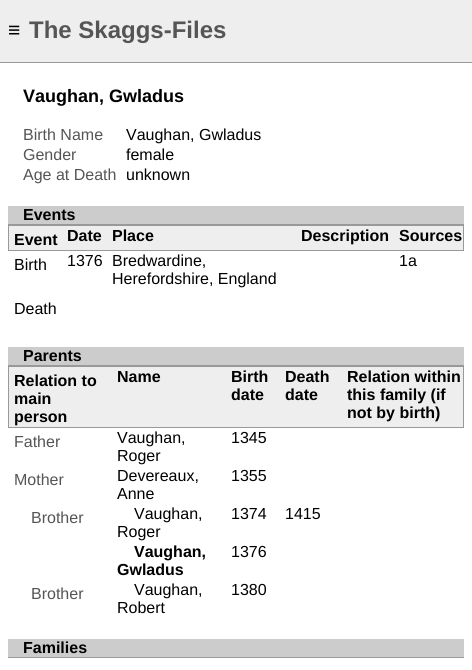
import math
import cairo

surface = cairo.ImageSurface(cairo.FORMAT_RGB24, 472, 670)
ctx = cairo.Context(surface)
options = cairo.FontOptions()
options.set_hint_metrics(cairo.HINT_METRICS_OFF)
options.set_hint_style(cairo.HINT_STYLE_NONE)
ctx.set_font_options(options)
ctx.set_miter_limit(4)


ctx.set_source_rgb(0.933, 0.933, 0.933)
ctx.paint()
ctx.select_font_face("Liberation Sans")
ctx.set_font_size(21)
ctx.set_source_rgb(0, 0, 0)
ctx.move_to(8, 37)
ctx.show_text("≡")
ctx.select_font_face("Liberation Sans", cairo.FONT_SLANT_NORMAL, cairo.FONT_WEIGHT_BOLD)
ctx.set_font_size(24)
ctx.set_source_rgb(0.333, 0.333, 0.333)
ctx.move_to(29, 38)
ctx.show_text("The Skaggs-Files")
ctx.set_source_rgb(1, 1, 1)
ctx.rectangle(0, 63, 472, 607)
ctx.fill()
ctx.set_source_rgb(0.6, 0.6, 0.6)
ctx.rectangle(0, 62, 472, 1)
ctx.fill()
ctx.set_font_size(18)
ctx.set_source_rgb(0, 0, 0)
ctx.move_to(23, 102)
ctx.show_text("Vaughan, Gwladus")
ctx.select_font_face("Liberation Sans")
ctx.set_font_size(16)
ctx.set_source_rgb(0.333, 0.333, 0.333)
ctx.move_to(23, 140)
ctx.show_text("Birth Name")
ctx.set_source_rgb(0, 0, 0)
ctx.move_to(126, 140)
ctx.show_text("Vaughan, Gwladus")
ctx.set_source_rgb(0.333, 0.333, 0.333)
ctx.move_to(23, 160)
ctx.show_text("Gender")
ctx.set_source_rgb(0, 0, 0)
ctx.move_to(126, 160)
ctx.show_text("female")
ctx.set_source_rgb(0.333, 0.333, 0.333)
ctx.move_to(23, 180)
ctx.show_text("Age at Death")
ctx.set_source_rgb(0, 0, 0)
ctx.move_to(126, 180)
ctx.show_text("unknown")
ctx.set_source_rgb(0.8, 0.8, 0.8)
ctx.rectangle(8, 206, 456, 18)
ctx.fill()
ctx.set_source_rgb(0.6, 0.6, 0.6)
ctx.rectangle(8, 224, 456, 1)
ctx.fill()
ctx.select_font_face("Liberation Sans", cairo.FONT_SLANT_NORMAL, cairo.FONT_WEIGHT_BOLD)
ctx.set_source_rgb(0, 0, 0)
ctx.move_to(23, 220)
ctx.show_text("Events")
ctx.set_source_rgb(0.933, 0.933, 0.933)
ctx.rectangle(9, 226, 454, 24)
ctx.fill()
ctx.set_source_rgb(0.6, 0.6, 0.6)
ctx.rectangle(8, 225, 456, 1)
ctx.fill()
ctx.rectangle(463, 225, 1, 26)
ctx.fill()
ctx.rectangle(8, 250, 456, 1)
ctx.fill()
ctx.rectangle(8, 225, 1, 26)
ctx.fill()
ctx.set_source_rgb(0, 0, 0)
ctx.move_to(14, 245)
ctx.show_text("Event")
ctx.move_to(67, 241)
ctx.show_text("Date")
ctx.move_to(112, 241)
ctx.show_text("Place")
ctx.move_to(301, 241)
ctx.show_text("Description")
ctx.move_to(399, 241)
ctx.show_text("Sources")
ctx.select_font_face("Liberation Sans")
ctx.move_to(14, 270)
ctx.show_text("Birth")
ctx.move_to(67, 266)
ctx.show_text("1376")
ctx.move_to(112, 266)
ctx.show_text("Bredwardine,")
ctx.move_to(112, 284)
ctx.show_text("Herefordshire, England")
ctx.move_to(399, 266)
ctx.show_text("1a")
ctx.move_to(14, 314)
ctx.show_text("Death")
ctx.set_source_rgb(0.8, 0.8, 0.8)
ctx.rectangle(8, 347, 456, 18)
ctx.fill()
ctx.set_source_rgb(0.6, 0.6, 0.6)
ctx.rectangle(8, 365, 456, 1)
ctx.fill()
ctx.select_font_face("Liberation Sans", cairo.FONT_SLANT_NORMAL, cairo.FONT_WEIGHT_BOLD)
ctx.set_source_rgb(0, 0, 0)
ctx.move_to(23, 361)
ctx.show_text("Parents")
ctx.set_source_rgb(0.933, 0.933, 0.933)
ctx.rectangle(9, 367, 454, 60)
ctx.fill()
ctx.set_source_rgb(0.6, 0.6, 0.6)
ctx.rectangle(8, 366, 456, 1)
ctx.fill()
ctx.rectangle(463, 366, 1, 62)
ctx.fill()
ctx.rectangle(8, 427, 456, 1)
ctx.fill()
ctx.rectangle(8, 366, 1, 62)
ctx.fill()
ctx.set_source_rgb(0, 0, 0)
ctx.move_to(14, 386)
ctx.show_text("Relation to")
ctx.move_to(14, 404)
ctx.show_text("main")
ctx.move_to(14, 422)
ctx.show_text("person")
ctx.move_to(117, 382)
ctx.show_text("Name")
ctx.move_to(231, 382)
ctx.show_text("Birth")
ctx.move_to(231, 400)
ctx.show_text("date")
ctx.move_to(285, 382)
ctx.show_text("Death")
ctx.move_to(285, 400)
ctx.show_text("date")
ctx.move_to(347, 382)
ctx.show_text("Relation within")
ctx.move_to(347, 400)
ctx.show_text("this family (if")
ctx.move_to(347, 418)
ctx.show_text("not by birth)")
ctx.select_font_face("Liberation Sans")
ctx.set_source_rgb(0.333, 0.333, 0.333)
ctx.move_to(14, 447)
ctx.show_text("Father")
ctx.set_source_rgb(0, 0, 0)
ctx.move_to(117, 443)
ctx.show_text("Vaughan,")
ctx.move_to(117, 461)
ctx.show_text("Roger")
ctx.move_to(231, 443)
ctx.show_text("1345")
ctx.set_source_rgb(0.333, 0.333, 0.333)
ctx.move_to(14, 485)
ctx.show_text("Mother")
ctx.set_source_rgb(0, 0, 0)
ctx.move_to(117, 481)
ctx.show_text("Devereaux,")
ctx.move_to(117, 499)
ctx.show_text("Anne")
ctx.move_to(231, 481)
ctx.show_text("1355")
ctx.set_source_rgb(0.333, 0.333, 0.333)
ctx.move_to(31, 523)
ctx.show_text("Brother")
ctx.set_source_rgb(0, 0, 0)
ctx.move_to(134, 519)
ctx.show_text("Vaughan,")
ctx.move_to(117, 537)
ctx.show_text("Roger")
ctx.move_to(231, 519)
ctx.show_text("1374")
ctx.move_to(285, 519)
ctx.show_text("1415")
ctx.select_font_face("Liberation Sans", cairo.FONT_SLANT_NORMAL, cairo.FONT_WEIGHT_BOLD)
ctx.move_to(134, 557)
ctx.show_text("Vaughan,")
ctx.move_to(117, 575)
ctx.show_text("Gwladus")
ctx.select_font_face("Liberation Sans")
ctx.move_to(231, 557)
ctx.show_text("1376")
ctx.set_source_rgb(0.333, 0.333, 0.333)
ctx.move_to(31, 599)
ctx.show_text("Brother")
ctx.set_source_rgb(0, 0, 0)
ctx.move_to(134, 595)
ctx.show_text("Vaughan,")
ctx.move_to(117, 613)
ctx.show_text("Robert")
ctx.move_to(231, 595)
ctx.show_text("1380")
ctx.set_source_rgb(0.8, 0.8, 0.8)
ctx.rectangle(8, 639, 456, 18)
ctx.fill()
ctx.set_source_rgb(0.6, 0.6, 0.6)
ctx.rectangle(8, 657, 456, 1)
ctx.fill()
ctx.select_font_face("Liberation Sans", cairo.FONT_SLANT_NORMAL, cairo.FONT_WEIGHT_BOLD)
ctx.set_source_rgb(0, 0, 0)
ctx.move_to(23, 653)
ctx.show_text("Families")
surface.write_to_png("page.png")
